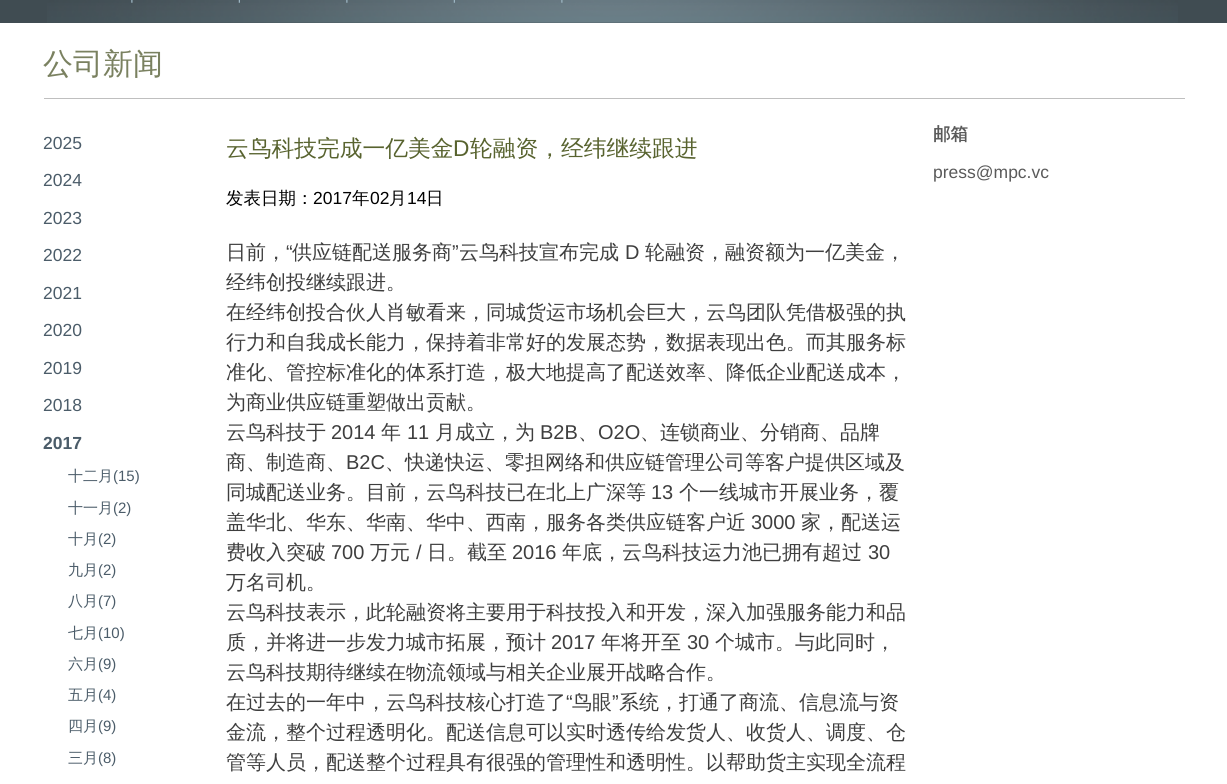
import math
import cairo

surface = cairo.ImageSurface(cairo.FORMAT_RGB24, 1227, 784)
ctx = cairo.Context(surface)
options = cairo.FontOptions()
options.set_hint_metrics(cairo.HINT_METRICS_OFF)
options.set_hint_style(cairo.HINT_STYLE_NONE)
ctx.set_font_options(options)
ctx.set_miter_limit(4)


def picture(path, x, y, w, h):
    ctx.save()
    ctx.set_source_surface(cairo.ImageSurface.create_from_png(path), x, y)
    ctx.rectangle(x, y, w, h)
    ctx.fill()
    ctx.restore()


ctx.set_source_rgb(1, 1, 1)
ctx.paint()
ctx.set_source_rgb(0.251, 0.298, 0.322)
ctx.rectangle(0, 0, 1227, 23)
ctx.fill()
picture("img1.png", 47, 0, 1131, 23)
picture("img2.png", 131, 0, 2, 3)
picture("img3.png", 238, 0, 2, 3)
picture("img4.png", 346, 0, 2, 3)
picture("img5.png", 453, 0, 2, 3)
picture("img6.png", 561, 0, 2, 3)
ctx.set_source_rgb(0.749, 0.749, 0.749)
ctx.rectangle(44, 98, 1141, 1)
ctx.fill()
ctx.select_font_face("WenQuanYi Zen Hei Medium")
ctx.set_font_size(30)
ctx.set_source_rgb(0.478, 0.506, 0.376)
ctx.move_to(43, 74)
ctx.show_text("公司新闻")
ctx.select_font_face("Liberation Sans")
ctx.set_font_size(17.5)
ctx.set_source_rgb(0.294, 0.361, 0.412)
ctx.move_to(43, 149)
ctx.show_text("2025")
ctx.move_to(43, 186)
ctx.show_text("2024")
ctx.move_to(43, 224)
ctx.show_text("2023")
ctx.move_to(43, 261)
ctx.show_text("2022")
ctx.move_to(43, 299)
ctx.show_text("2021")
ctx.move_to(43, 336)
ctx.show_text("2020")
ctx.move_to(43, 374)
ctx.show_text("2019")
ctx.move_to(43, 411)
ctx.show_text("2018")
ctx.select_font_face("Liberation Sans", cairo.FONT_SLANT_NORMAL, cairo.FONT_WEIGHT_BOLD)
ctx.move_to(43, 449)
ctx.show_text("2017")
ctx.select_font_face("WenQuanYi Zen Hei Medium")
ctx.set_font_size(15)
ctx.move_to(68, 481)
ctx.show_text("十二月")
ctx.select_font_face("Liberation Sans")
ctx.move_to(113, 481)
ctx.show_text("(15)")
ctx.select_font_face("WenQuanYi Zen Hei Medium")
ctx.move_to(68, 513)
ctx.show_text("十一月")
ctx.select_font_face("Liberation Sans")
ctx.move_to(113, 513)
ctx.show_text("(2)")
ctx.select_font_face("WenQuanYi Zen Hei Medium")
ctx.move_to(68, 544)
ctx.show_text("十月")
ctx.select_font_face("Liberation Sans")
ctx.move_to(98, 544)
ctx.show_text("(2)")
ctx.select_font_face("WenQuanYi Zen Hei Medium")
ctx.move_to(68, 575)
ctx.show_text("九月")
ctx.select_font_face("Liberation Sans")
ctx.move_to(98, 575)
ctx.show_text("(2)")
ctx.select_font_face("WenQuanYi Zen Hei Medium")
ctx.move_to(68, 606)
ctx.show_text("八月")
ctx.select_font_face("Liberation Sans")
ctx.move_to(98, 606)
ctx.show_text("(7)")
ctx.select_font_face("WenQuanYi Zen Hei Medium")
ctx.move_to(68, 638)
ctx.show_text("七月")
ctx.select_font_face("Liberation Sans")
ctx.move_to(98, 638)
ctx.show_text("(10)")
ctx.select_font_face("WenQuanYi Zen Hei Medium")
ctx.move_to(68, 669)
ctx.show_text("六月")
ctx.select_font_face("Liberation Sans")
ctx.move_to(98, 669)
ctx.show_text("(9)")
ctx.select_font_face("WenQuanYi Zen Hei Medium")
ctx.move_to(68, 700)
ctx.show_text("五月")
ctx.select_font_face("Liberation Sans")
ctx.move_to(98, 700)
ctx.show_text("(4)")
ctx.select_font_face("WenQuanYi Zen Hei Medium")
ctx.move_to(68, 731)
ctx.show_text("四月")
ctx.select_font_face("Liberation Sans")
ctx.move_to(98, 731)
ctx.show_text("(9)")
ctx.select_font_face("WenQuanYi Zen Hei Medium")
ctx.move_to(68, 763)
ctx.show_text("三月")
ctx.select_font_face("Liberation Sans")
ctx.move_to(98, 763)
ctx.show_text("(8)")
ctx.select_font_face("WenQuanYi Zen Hei Medium")
ctx.set_font_size(22.75)
ctx.set_source_rgb(0.345, 0.388, 0.184)
ctx.move_to(226, 156)
ctx.show_text("云鸟科技完成一亿美金")
ctx.select_font_face("Liberation Sans")
ctx.move_to(453, 156)
ctx.show_text("D")
ctx.select_font_face("WenQuanYi Zen Hei Medium")
ctx.move_to(470, 156)
ctx.show_text("轮融资，经纬继续跟进")
ctx.set_font_size(17.5)
ctx.set_source_rgb(0, 0, 0)
ctx.move_to(226, 204)
ctx.show_text("发表日期：")
ctx.select_font_face("Liberation Sans")
ctx.move_to(313, 204)
ctx.show_text("2017")
ctx.select_font_face("WenQuanYi Zen Hei Medium")
ctx.move_to(352, 204)
ctx.show_text("年")
ctx.select_font_face("Liberation Sans")
ctx.move_to(370, 204)
ctx.show_text("02")
ctx.select_font_face("WenQuanYi Zen Hei Medium")
ctx.move_to(389, 204)
ctx.show_text("月")
ctx.select_font_face("Liberation Sans")
ctx.move_to(407, 204)
ctx.show_text("14")
ctx.select_font_face("WenQuanYi Zen Hei Medium")
ctx.move_to(426, 204)
ctx.show_text("日")
ctx.set_font_size(20)
ctx.set_source_rgb(0.243, 0.243, 0.243)
ctx.move_to(226, 259)
ctx.show_text("日前，")
ctx.select_font_face("Liberation Sans")
ctx.move_to(286, 259)
ctx.show_text("“")
ctx.select_font_face("WenQuanYi Zen Hei Medium")
ctx.move_to(292, 259)
ctx.show_text("供应链配送服务商")
ctx.select_font_face("Liberation Sans")
ctx.move_to(452, 259)
ctx.show_text("”")
ctx.select_font_face("WenQuanYi Zen Hei Medium")
ctx.move_to(459, 259)
ctx.show_text("云鸟科技宣布完成")
ctx.select_font_face("Liberation Sans")
ctx.move_to(625, 259)
ctx.show_text("D")
ctx.select_font_face("WenQuanYi Zen Hei Medium")
ctx.move_to(645, 259)
ctx.show_text("轮融资，融资额为一亿美金，")
ctx.move_to(226, 289)
ctx.show_text("经纬创投继续跟进。")
ctx.move_to(226, 319)
ctx.show_text("在经纬创投合伙人肖敏看来，同城货运市场机会巨大，云鸟团队凭借极强的执")
ctx.move_to(226, 349)
ctx.show_text("行力和自我成长能力，保持着非常好的发展态势，数据表现出色。而其服务标")
ctx.move_to(226, 379)
ctx.show_text("准化、管控标准化的体系打造，极大地提高了配送效率、降低企业配送成本，")
ctx.move_to(226, 409)
ctx.show_text("为商业供应链重塑做出贡献。")
ctx.move_to(226, 439)
ctx.show_text("云鸟科技于")
ctx.select_font_face("Liberation Sans")
ctx.move_to(331, 439)
ctx.show_text("2014")
ctx.select_font_face("WenQuanYi Zen Hei Medium")
ctx.move_to(381, 439)
ctx.show_text("年")
ctx.select_font_face("Liberation Sans")
ctx.move_to(407, 439)
ctx.show_text("11")
ctx.select_font_face("WenQuanYi Zen Hei Medium")
ctx.move_to(435, 439)
ctx.show_text("月成立，为")
ctx.select_font_face("Liberation Sans")
ctx.move_to(540, 439)
ctx.show_text("B2B")
ctx.select_font_face("WenQuanYi Zen Hei Medium")
ctx.move_to(578, 439)
ctx.show_text("、")
ctx.select_font_face("Liberation Sans")
ctx.move_to(598, 439)
ctx.show_text("O2O")
ctx.select_font_face("WenQuanYi Zen Hei Medium")
ctx.move_to(640, 439)
ctx.show_text("、连锁商业、分销商、品牌")
ctx.move_to(226, 469)
ctx.show_text("商、制造商、")
ctx.select_font_face("Liberation Sans")
ctx.move_to(346, 469)
ctx.show_text("B2C")
ctx.select_font_face("WenQuanYi Zen Hei Medium")
ctx.move_to(385, 469)
ctx.show_text("、快递快运、零担网络和供应链管理公司等客户提供区域及")
ctx.move_to(226, 499)
ctx.show_text("同城配送业务。目前，云鸟科技已在北上广深等")
ctx.select_font_face("Liberation Sans")
ctx.move_to(651, 499)
ctx.show_text("13")
ctx.select_font_face("WenQuanYi Zen Hei Medium")
ctx.move_to(679, 499)
ctx.show_text("个一线城市开展业务，覆")
ctx.move_to(226, 529)
ctx.show_text("盖华北、华东、华南、华中、西南，服务各类供应链客户近")
ctx.select_font_face("Liberation Sans")
ctx.move_to(751, 529)
ctx.show_text("3000")
ctx.select_font_face("WenQuanYi Zen Hei Medium")
ctx.move_to(801, 529)
ctx.show_text("家，配送运")
ctx.move_to(226, 559)
ctx.show_text("费收入突破")
ctx.select_font_face("Liberation Sans")
ctx.move_to(331, 559)
ctx.show_text("700")
ctx.select_font_face("WenQuanYi Zen Hei Medium")
ctx.move_to(370, 559)
ctx.show_text("万元")
ctx.select_font_face("Liberation Sans")
ctx.move_to(416, 559)
ctx.show_text("/")
ctx.select_font_face("WenQuanYi Zen Hei Medium")
ctx.move_to(427, 559)
ctx.show_text("日。截至")
ctx.select_font_face("Liberation Sans")
ctx.move_to(512, 559)
ctx.show_text("2016")
ctx.select_font_face("WenQuanYi Zen Hei Medium")
ctx.move_to(562, 559)
ctx.show_text("年底，云鸟科技运力池已拥有超过")
ctx.select_font_face("Liberation Sans")
ctx.move_to(868, 559)
ctx.show_text("30")
ctx.select_font_face("WenQuanYi Zen Hei Medium")
ctx.move_to(226, 589)
ctx.show_text("万名司机。")
ctx.move_to(226, 619)
ctx.show_text("云鸟科技表示，此轮融资将主要用于科技投入和开发，深入加强服务能力和品")
ctx.move_to(226, 649)
ctx.show_text("质，并将进一步发力城市拓展，预计")
ctx.select_font_face("Liberation Sans")
ctx.move_to(551, 649)
ctx.show_text("2017")
ctx.select_font_face("WenQuanYi Zen Hei Medium")
ctx.move_to(601, 649)
ctx.show_text("年将开至")
ctx.select_font_face("Liberation Sans")
ctx.move_to(687, 649)
ctx.show_text("30")
ctx.select_font_face("WenQuanYi Zen Hei Medium")
ctx.move_to(715, 649)
ctx.show_text("个城市。与此同时，")
ctx.move_to(226, 679)
ctx.show_text("云鸟科技期待继续在物流领域与相关企业展开战略合作。")
ctx.move_to(226, 709)
ctx.show_text("在过去的一年中，云鸟科技核心打造了")
ctx.select_font_face("Liberation Sans")
ctx.move_to(566, 709)
ctx.show_text("“")
ctx.select_font_face("WenQuanYi Zen Hei Medium")
ctx.move_to(572, 709)
ctx.show_text("鸟眼")
ctx.select_font_face("Liberation Sans")
ctx.move_to(612, 709)
ctx.show_text("”")
ctx.select_font_face("WenQuanYi Zen Hei Medium")
ctx.move_to(619, 709)
ctx.show_text("系统，打通了商流、信息流与资")
ctx.move_to(226, 739)
ctx.show_text("金流，整个过程透明化。配送信息可以实时透传给发货人、收货人、调度、仓")
ctx.move_to(226, 769)
ctx.show_text("管等人员，配送整个过程具有很强的管理性和透明性。以帮助货主实现全流程")
ctx.select_font_face("WenQuanYi Zen Hei", cairo.FONT_SLANT_NORMAL, cairo.FONT_WEIGHT_BOLD)
ctx.set_font_size(17.5)
ctx.set_source_rgb(0.353, 0.353, 0.353)
ctx.move_to(933, 140)
ctx.show_text("邮箱")
ctx.select_font_face("Liberation Sans")
ctx.move_to(933, 178)
ctx.show_text("press@mpc.vc")
surface.write_to_png("page.png")
